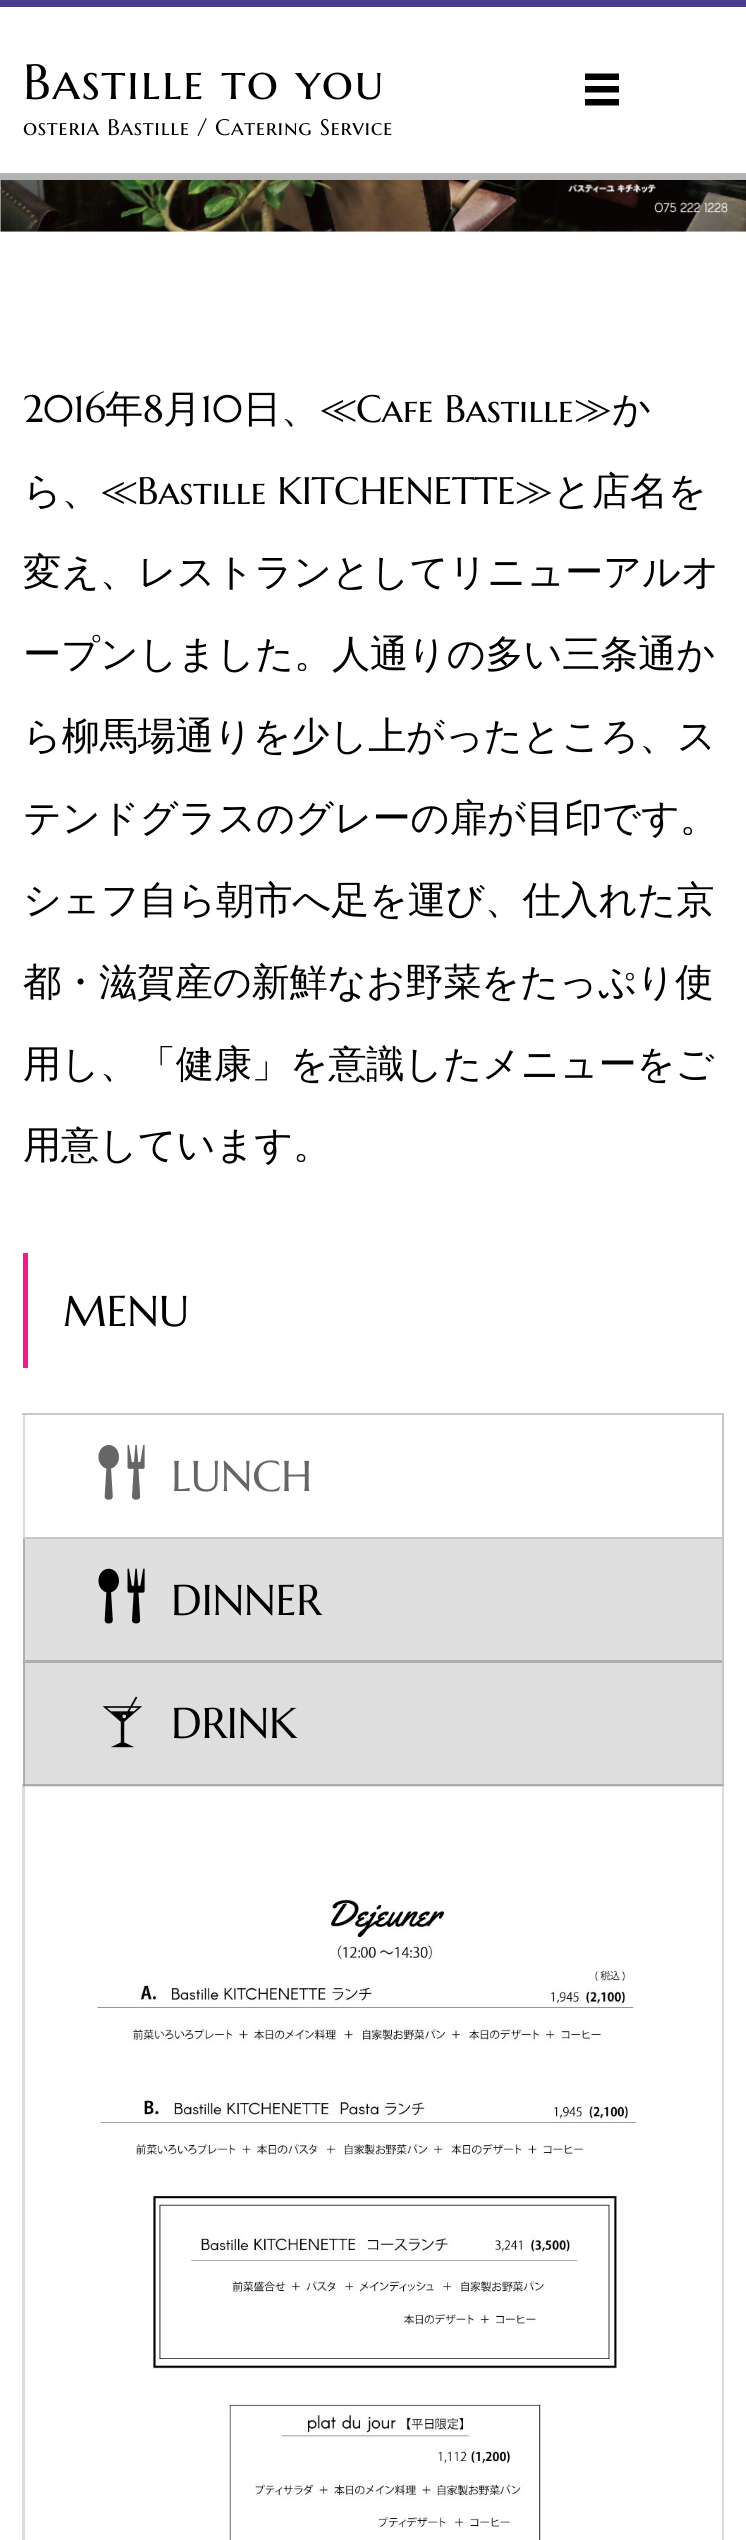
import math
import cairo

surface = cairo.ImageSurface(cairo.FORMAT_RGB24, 746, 2540)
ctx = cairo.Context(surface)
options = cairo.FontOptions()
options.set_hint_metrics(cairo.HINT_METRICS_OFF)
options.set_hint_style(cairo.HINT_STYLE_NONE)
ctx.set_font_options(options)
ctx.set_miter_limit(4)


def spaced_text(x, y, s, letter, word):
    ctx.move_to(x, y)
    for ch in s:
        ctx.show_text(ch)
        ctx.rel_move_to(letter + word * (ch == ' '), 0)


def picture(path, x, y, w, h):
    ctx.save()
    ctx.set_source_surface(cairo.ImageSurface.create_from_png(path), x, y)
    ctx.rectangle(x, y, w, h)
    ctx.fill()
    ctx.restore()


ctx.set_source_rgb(1, 1, 1)
ctx.paint()
ctx.set_source_rgb(0.282, 0.239, 0.545)
ctx.rectangle(0, 0, 746, 7)
ctx.fill()
ctx.set_source_rgb(0.702, 0.702, 0.702)
ctx.rectangle(0, 173, 746, 7)
ctx.fill()
ctx.select_font_face("Marcellus SC")
ctx.set_font_size(49.5)
ctx.set_source_rgb(0, 0, 0)
spaced_text(23, 99, "Bastille to you", 1.5, 0)
ctx.set_font_size(22.5)
spaced_text(23, 135, "osteria Bastille / Catering Service", 0.65, 0)
ctx.new_path()
ctx.move_to(585, 86)
ctx.line_to(585, 92.5)
ctx.line_to(619, 92.5)
ctx.line_to(619, 86)
ctx.close_path()
ctx.move_to(585, 99)
ctx.line_to(585, 105.5)
ctx.line_to(619, 105.5)
ctx.line_to(619, 99)
ctx.close_path()
ctx.move_to(585, 73.5)
ctx.line_to(585, 80)
ctx.line_to(619, 80)
ctx.line_to(619, 73.5)
ctx.close_path()
ctx.fill()
picture("img1.png", 0, 180, 746, 52)
ctx.set_font_size(38.25)
spaced_text(23, 422, "2016", -0.3, 0)
ctx.select_font_face("WenQuanYi Zen Hei Medium")
spaced_text(105, 422, "年", -0.3, 0)
ctx.select_font_face("Marcellus SC")
spaced_text(143, 422, "8", -0.3, 0)
ctx.select_font_face("WenQuanYi Zen Hei Medium")
spaced_text(163, 422, "月", -0.3, 0)
ctx.select_font_face("Marcellus SC")
spaced_text(201, 422, "10", -0.3, 0)
ctx.select_font_face("WenQuanYi Zen Hei Medium")
spaced_text(243, 422, "日、≪", -0.3, 0)
ctx.select_font_face("Marcellus SC")
spaced_text(356, 422, "Cafe Bastille", -0.3, 0)
ctx.select_font_face("WenQuanYi Zen Hei Medium")
spaced_text(574, 422, "≫か", -0.3, 0)
spaced_text(23, 504, "ら、≪", -0.3, 0)
ctx.select_font_face("Marcellus SC")
spaced_text(137, 504, "Bastille KITCHENETTE", -0.3, 0)
ctx.select_font_face("WenQuanYi Zen Hei Medium")
spaced_text(515, 504, "≫と店名を", -0.3, 0)
spaced_text(23, 585, "変え、レストランとしてリニューアルオ", -0.3, 0)
spaced_text(23, 667, "ープンしました。人通りの多い三条通か", -0.3, 0)
spaced_text(23, 749, "ら柳馬場通りを少し上がったところ、ス", -0.3, 0)
spaced_text(23, 831, "テンドグラスのグレーの扉が目印です。", -0.3, 0)
spaced_text(23, 913, "シェフ自ら朝市へ足を運び、仕入れた京", -0.3, 0)
spaced_text(23, 995, "都・滋賀産の新鮮なお野菜をたっぷり使", -0.3, 0)
spaced_text(23, 1077, "用し、「健康」を意識したメニューをご", -0.3, 0)
spaced_text(23, 1158, "用意しています。", -0.3, 0)
ctx.set_source_rgb(1, 0.078, 0.576)
ctx.rectangle(23, 1253, 5, 115)
ctx.fill()
ctx.select_font_face("Marcellus SC")
ctx.set_font_size(43)
ctx.set_source_rgb(0, 0, 0)
spaced_text(63, 1326, "MENU", -0.3, 0)
ctx.set_source_rgb(0.78, 0.78, 0.78)
ctx.new_path()
ctx.move_to(22, 1413)
ctx.line_to(724, 1413)
ctx.line_to(722, 1415)
ctx.line_to(22, 1415)
ctx.close_path()
ctx.fill()
ctx.set_source_rgb(0.859, 0.859, 0.859)
ctx.new_path()
ctx.move_to(724, 1784)
ctx.line_to(724, 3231)
ctx.line_to(722, 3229)
ctx.line_to(722, 1784)
ctx.close_path()
ctx.fill()
ctx.set_source_rgba(0, 0, 0, 0.22)
ctx.new_path()
ctx.move_to(724, 1413)
ctx.line_to(724, 1786)
ctx.line_to(722, 1786)
ctx.line_to(722, 1415)
ctx.close_path()
ctx.fill()
ctx.set_source_rgb(0.78, 0.78, 0.78)
ctx.new_path()
ctx.move_to(722, 1539)
ctx.line_to(22, 1539)
ctx.line_to(25, 1537)
ctx.line_to(722, 1537)
ctx.close_path()
ctx.fill()
ctx.save()
ctx.rectangle(23, 1415, 699, 372)
ctx.clip()
ctx.set_source_rgba(0.667, 0.667, 0.667, 0.42)
ctx.new_path()
ctx.move_to(22, 1539)
ctx.line_to(22, 1415)
ctx.line_to(25, 1415)
ctx.line_to(25, 1537)
ctx.close_path()
ctx.fill()
ctx.restore()
picture("img2.png", 98, 1444, 47, 56)
ctx.set_source_rgb(0.4, 0.4, 0.4)
spaced_text(171, 1491, "LUNCH", -0.3, 0)
ctx.set_source_rgb(0.875, 0.875, 0.875)
ctx.rectangle(23, 1539, 699, 123)
ctx.fill()
ctx.set_source_rgb(0.682, 0.682, 0.682)
ctx.new_path()
ctx.move_to(722, 1663)
ctx.line_to(22, 1663)
ctx.line_to(25, 1660)
ctx.line_to(722, 1660)
ctx.close_path()
ctx.fill()
ctx.save()
ctx.rectangle(23, 1415, 699, 372)
ctx.clip()
ctx.new_path()
ctx.move_to(22, 1663)
ctx.line_to(22, 1539)
ctx.line_to(25, 1539)
ctx.line_to(25, 1660)
ctx.close_path()
ctx.fill()
ctx.restore()
picture("img3.png", 98, 1568, 47, 56)
ctx.set_source_rgb(0, 0, 0)
spaced_text(171, 1615, "DINNER", -0.3, 0)
ctx.set_source_rgb(0.859, 0.859, 0.859)
ctx.new_path()
ctx.move_to(22, 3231)
ctx.line_to(22, 1784)
ctx.line_to(25, 1784)
ctx.line_to(25, 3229)
ctx.close_path()
ctx.fill()
ctx.set_source_rgba(0.667, 0.667, 0.667, 0.38)
ctx.rectangle(23, 1663, 699, 124)
ctx.fill()
ctx.set_source_rgba(0, 0, 0, 0.22)
ctx.new_path()
ctx.move_to(722, 1786)
ctx.line_to(22, 1786)
ctx.line_to(25, 1784)
ctx.line_to(722, 1784)
ctx.close_path()
ctx.fill()
ctx.save()
ctx.rectangle(23, 1415, 699, 372)
ctx.clip()
ctx.new_path()
ctx.move_to(22, 1786)
ctx.line_to(22, 1663)
ctx.line_to(25, 1663)
ctx.line_to(25, 1784)
ctx.close_path()
ctx.fill()
ctx.restore()
picture("img4.png", 102, 1696, 40, 52)
ctx.set_source_rgb(0, 0, 0)
spaced_text(171, 1738, "DRINK", -0.3, 0)
picture("img5.png", 96, 1898, 541, 642)
surface.write_to_png("page.png")
